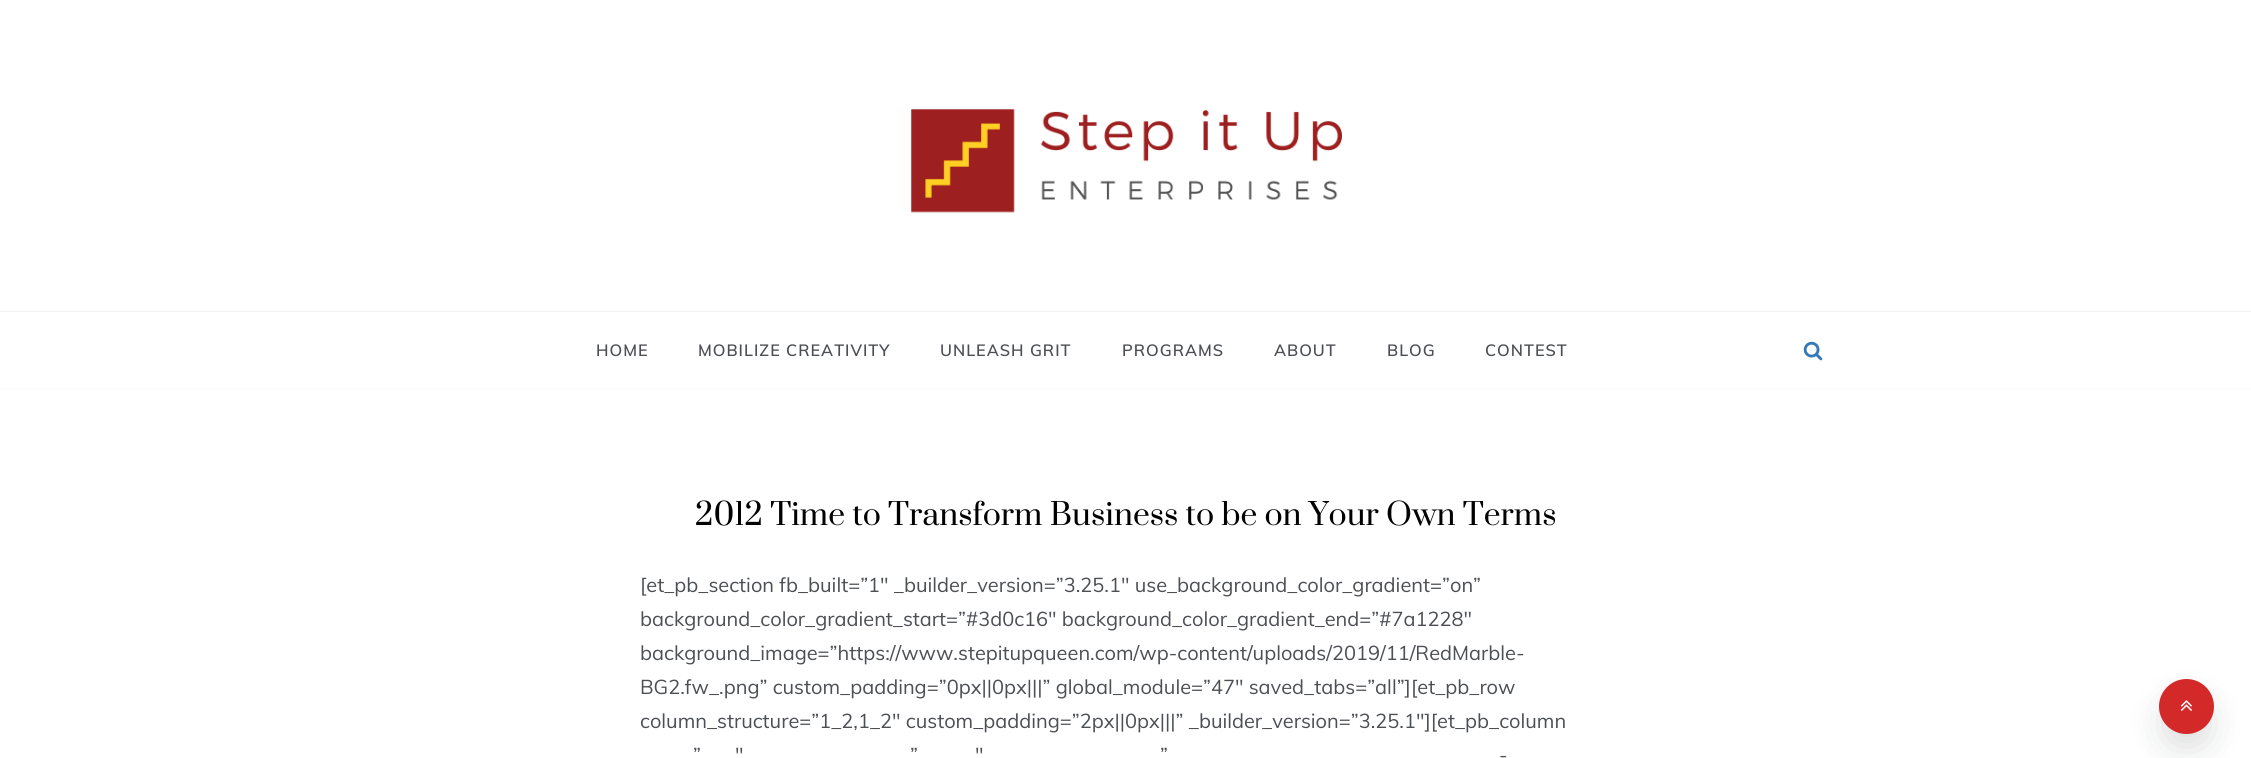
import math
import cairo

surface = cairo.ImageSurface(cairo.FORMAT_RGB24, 2251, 758)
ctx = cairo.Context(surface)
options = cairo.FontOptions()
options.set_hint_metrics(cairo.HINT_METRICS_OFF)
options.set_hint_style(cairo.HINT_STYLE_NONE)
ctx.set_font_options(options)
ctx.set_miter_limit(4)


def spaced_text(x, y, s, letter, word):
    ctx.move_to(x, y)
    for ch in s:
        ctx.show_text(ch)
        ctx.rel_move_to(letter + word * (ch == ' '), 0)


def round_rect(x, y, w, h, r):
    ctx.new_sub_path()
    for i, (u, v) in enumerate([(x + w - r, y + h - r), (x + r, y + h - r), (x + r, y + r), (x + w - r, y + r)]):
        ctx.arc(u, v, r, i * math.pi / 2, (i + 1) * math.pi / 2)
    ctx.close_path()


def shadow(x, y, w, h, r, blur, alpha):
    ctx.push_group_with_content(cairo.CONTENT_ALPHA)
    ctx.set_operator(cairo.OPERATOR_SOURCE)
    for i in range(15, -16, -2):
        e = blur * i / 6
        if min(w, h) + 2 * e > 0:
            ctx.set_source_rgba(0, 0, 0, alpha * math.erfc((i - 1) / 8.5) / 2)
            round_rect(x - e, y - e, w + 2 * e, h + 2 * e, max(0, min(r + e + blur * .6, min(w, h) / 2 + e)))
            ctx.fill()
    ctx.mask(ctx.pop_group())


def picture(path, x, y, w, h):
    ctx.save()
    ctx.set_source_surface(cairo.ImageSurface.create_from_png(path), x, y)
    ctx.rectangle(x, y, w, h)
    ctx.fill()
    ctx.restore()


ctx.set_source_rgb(1, 1, 1)
ctx.paint()
ctx.set_source_rgb(0.98, 0.98, 0.98)
ctx.rectangle(0, 388, 2251, 1)
ctx.fill()
ctx.set_source_rgb(0.949, 0.949, 0.949)
ctx.rectangle(0, 311, 2251, 1)
ctx.fill()
picture("img1.png", 911, 109, 431, 104)
ctx.select_font_face("Muli SemiBold")
ctx.set_font_size(16.25)
ctx.set_source_rgb(0.298, 0.31, 0.325)
spaced_text(596, 356, "HOME", 1, 0)
spaced_text(698, 356, "MOBILIZE CREATIVITY", 1, 0)
spaced_text(940, 356, "UNLEASH GRIT", 1, 0)
spaced_text(1122, 356, "PROGRAMS", 1, 0)
spaced_text(1274, 356, "ABOUT", 1, 0)
spaced_text(1387, 356, "BLOG", 1, 0)
spaced_text(1485, 356, "CONTEST", 1, 0)
picture("img2.png", 1803, 341, 20, 20)
ctx.select_font_face("Prata")
ctx.set_font_size(30)
ctx.set_source_rgb(0, 0, 0)
ctx.move_to(695, 525)
ctx.show_text("2012 Time to Transform Business to be on Your Own Terms")
ctx.select_font_face("Muli")
ctx.set_font_size(20)
ctx.set_source_rgb(0.298, 0.31, 0.325)
ctx.move_to(640, 592)
ctx.show_text("[et_pb_section fb_built=”1″ _builder_version=”3.25.1″ use_background_color_gradient=”on”")
ctx.move_to(640, 626)
ctx.show_text("background_color_gradient_start=”#3d0c16″ background_color_gradient_end=”#7a1228″")
ctx.move_to(640, 660)
ctx.show_text("background_image=”https://www.stepitupqueen.com/wp-content/uploads/2019/11/RedMarble-")
ctx.move_to(640, 694)
ctx.show_text("BG2.fw_.png” custom_padding=”0px||0px|||” global_module=”47″ saved_tabs=”all”][et_pb_row")
ctx.move_to(640, 728)
ctx.show_text("column_structure=”1_2,1_2″ custom_padding=”2px||0px|||” _builder_version=”3.25.1″][et_pb_column")
ctx.move_to(693, 762)
ctx.show_text("”")
ctx.move_to(735, 762)
ctx.show_text("″")
ctx.move_to(910, 762)
ctx.show_text("”")
ctx.move_to(975, 762)
ctx.show_text("″")
ctx.move_to(1160, 762)
ctx.show_text("”")
ctx.move_to(1499, 762)
ctx.show_text("-")
ctx.set_source_rgb(0.055, 0.067, 0.078)
shadow(2164, 701, 45, 45, 22.5, 17.5, 0.15)
ctx.set_source_rgb(0.831, 0.161, 0.161)
ctx.arc(2186.5, 706.5, 27.5, 0, 2 * math.pi)
ctx.fill()
picture("img3.png", 2180, 700, 12, 11)
surface.write_to_png("page.png")
